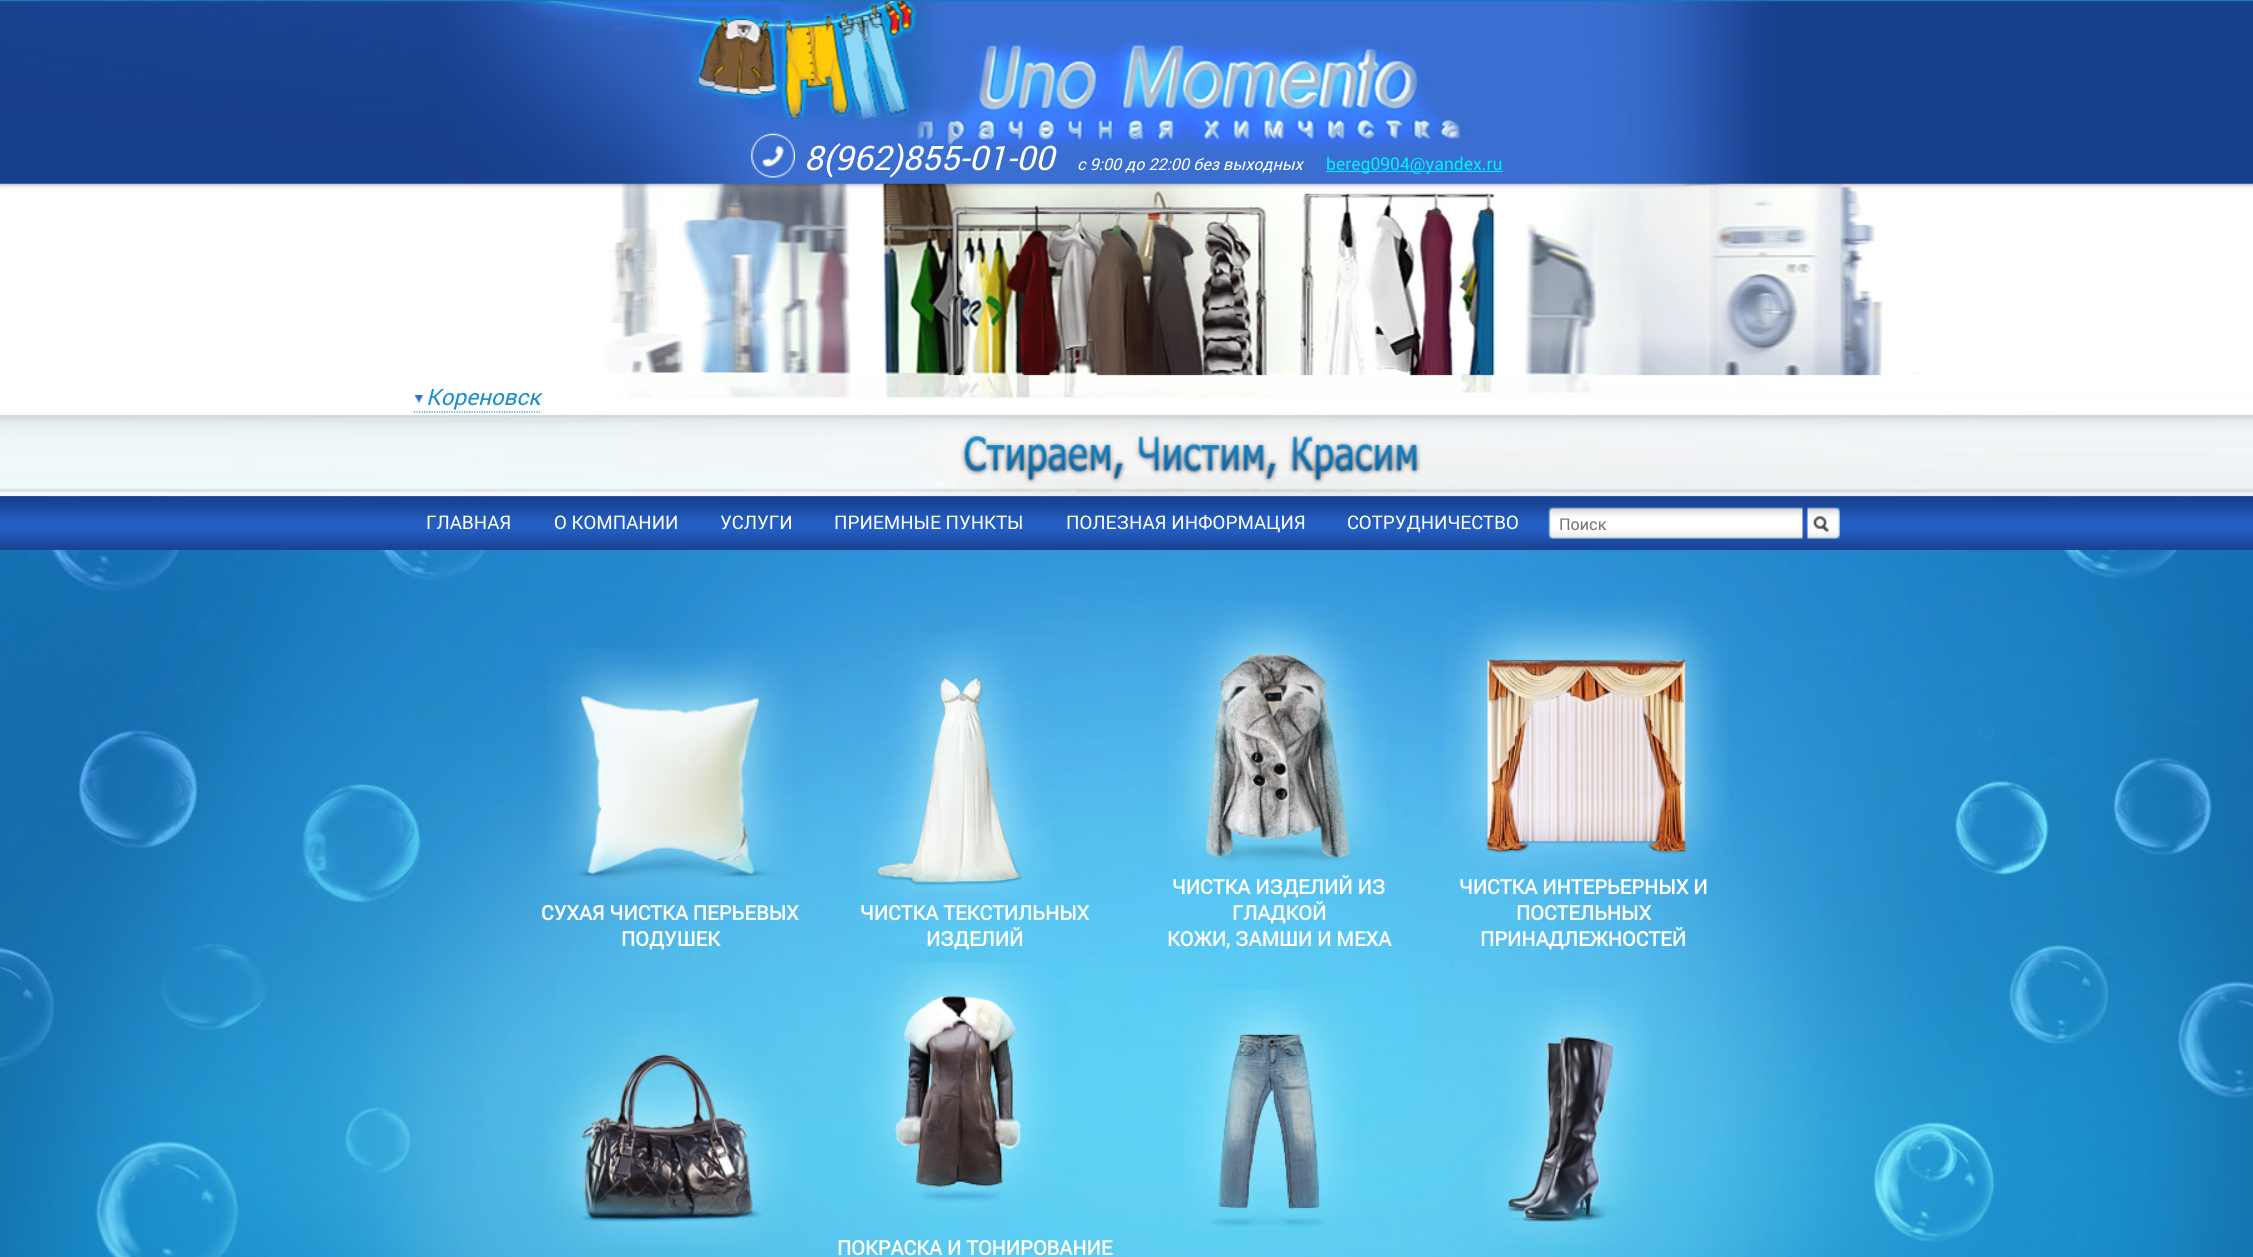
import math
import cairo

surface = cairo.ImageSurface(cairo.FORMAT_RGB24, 2253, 1257)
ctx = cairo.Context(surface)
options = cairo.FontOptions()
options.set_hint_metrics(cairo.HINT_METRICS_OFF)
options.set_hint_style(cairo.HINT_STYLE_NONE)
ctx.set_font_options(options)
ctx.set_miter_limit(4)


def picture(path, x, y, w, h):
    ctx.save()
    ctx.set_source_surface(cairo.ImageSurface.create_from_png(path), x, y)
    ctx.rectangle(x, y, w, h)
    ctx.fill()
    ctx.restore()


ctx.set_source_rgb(1, 1, 1)
ctx.paint()
picture("img1.png", 0, 0, 2253, 1257)
picture("img2.png", 0, 1, 2253, 496)
picture("img3.png", 751, 133, 44, 45)
ctx.select_font_face("Roboto", cairo.FONT_SLANT_ITALIC)
ctx.set_font_size(33.75)
ctx.set_source_rgb(1, 1, 1)
ctx.move_to(804, 170)
ctx.show_text("8(962)855-01-00")
ctx.set_font_size(16.25)
ctx.move_to(1077, 170)
ctx.show_text("с 9:00 до 22:00 без выходных")
ctx.set_source_rgb(0, 0.941, 1)
ctx.rectangle(1326, 171, 177, 1)
ctx.fill()
ctx.select_font_face("Roboto")
ctx.set_font_size(17.5)
ctx.move_to(1326, 170)
ctx.show_text("bereg0904@yandex.ru")
picture("img4.png", 414, 395, 9, 8)
ctx.select_font_face("Roboto", cairo.FONT_SLANT_ITALIC)
ctx.set_font_size(22.5)
ctx.set_source_rgb(0.102, 0.569, 0.792)
ctx.move_to(426, 405)
ctx.show_text("Кореновск")
ctx.new_path()
ctx.move_to(414, 412)
ctx.line_to(540, 412)
ctx.set_line_width(1.2)
ctx.set_dash([1.25, 1.25])
ctx.stroke()
picture("img5.png", 0, 496, 2253, 54)
ctx.select_font_face("Roboto")
ctx.set_font_size(18.75)
ctx.set_source_rgb(1, 1, 1)
ctx.move_to(426, 529)
ctx.show_text("ГЛАВНАЯ")
ctx.move_to(554, 529)
ctx.show_text("О КОМПАНИИ")
ctx.move_to(720, 529)
ctx.show_text("УСЛУГИ")
ctx.move_to(834, 529)
ctx.show_text("ПРИЕМНЫЕ ПУНКТЫ")
ctx.move_to(1066, 529)
ctx.show_text("ПОЛЕЗНАЯ ИНФОРМАЦИЯ")
ctx.move_to(1347, 529)
ctx.show_text("СОТРУДНИЧЕСТВО")
picture("img6.png", 1548, 507, 255, 32)
ctx.set_font_size(16.25)
ctx.set_source_rgb(0.459, 0.459, 0.459)
ctx.move_to(1559, 530)
ctx.show_text("Поиск")
picture("img7.png", 1807, 507, 33, 32)
picture("img8.png", 547, 648, 246, 248)
ctx.select_font_face("Roboto", cairo.FONT_SLANT_NORMAL, cairo.FONT_WEIGHT_BOLD)
ctx.set_font_size(20)
ctx.set_source_rgb(1, 1, 1)
ctx.move_to(541, 920)
ctx.show_text("СУХАЯ ЧИСТКА ПЕРЬЕВЫХ")
ctx.move_to(621, 946)
ctx.show_text("ПОДУШЕК")
picture("img9.png", 859, 631, 192, 313)
ctx.move_to(860, 920)
ctx.show_text("ЧИСТКА ТЕКСТИЛЬНЫХ")
ctx.move_to(926, 946)
ctx.show_text("ИЗДЕЛИЙ")
picture("img10.png", 1168, 601, 218, 316)
ctx.move_to(1172, 894)
ctx.show_text("ЧИСТКА ИЗДЕЛИЙ ИЗ")
ctx.move_to(1232, 920)
ctx.show_text("ГЛАДКОЙ")
ctx.move_to(1167, 946)
ctx.show_text("КОЖИ, ЗАМШИ И МЕХА")
picture("img11.png", 1443, 602, 286, 315)
ctx.move_to(1459, 894)
ctx.show_text("ЧИСТКА ИНТЕРЬЕРНЫХ И")
ctx.move_to(1516, 920)
ctx.show_text("ПОСТЕЛЬНЫХ")
ctx.move_to(1480, 946)
ctx.show_text("ПРИНАДЛЕЖНОСТЕЙ")
picture("img12.png", 544, 1013, 247, 234)
picture("img13.png", 862, 962, 194, 253)
ctx.move_to(837, 1255)
ctx.show_text("ПОКРАСКА И ТОНИРОВАНИЕ")
picture("img14.png", 1183, 989, 174, 238)
picture("img15.png", 1484, 989, 165, 256)
surface.write_to_png("page.png")
